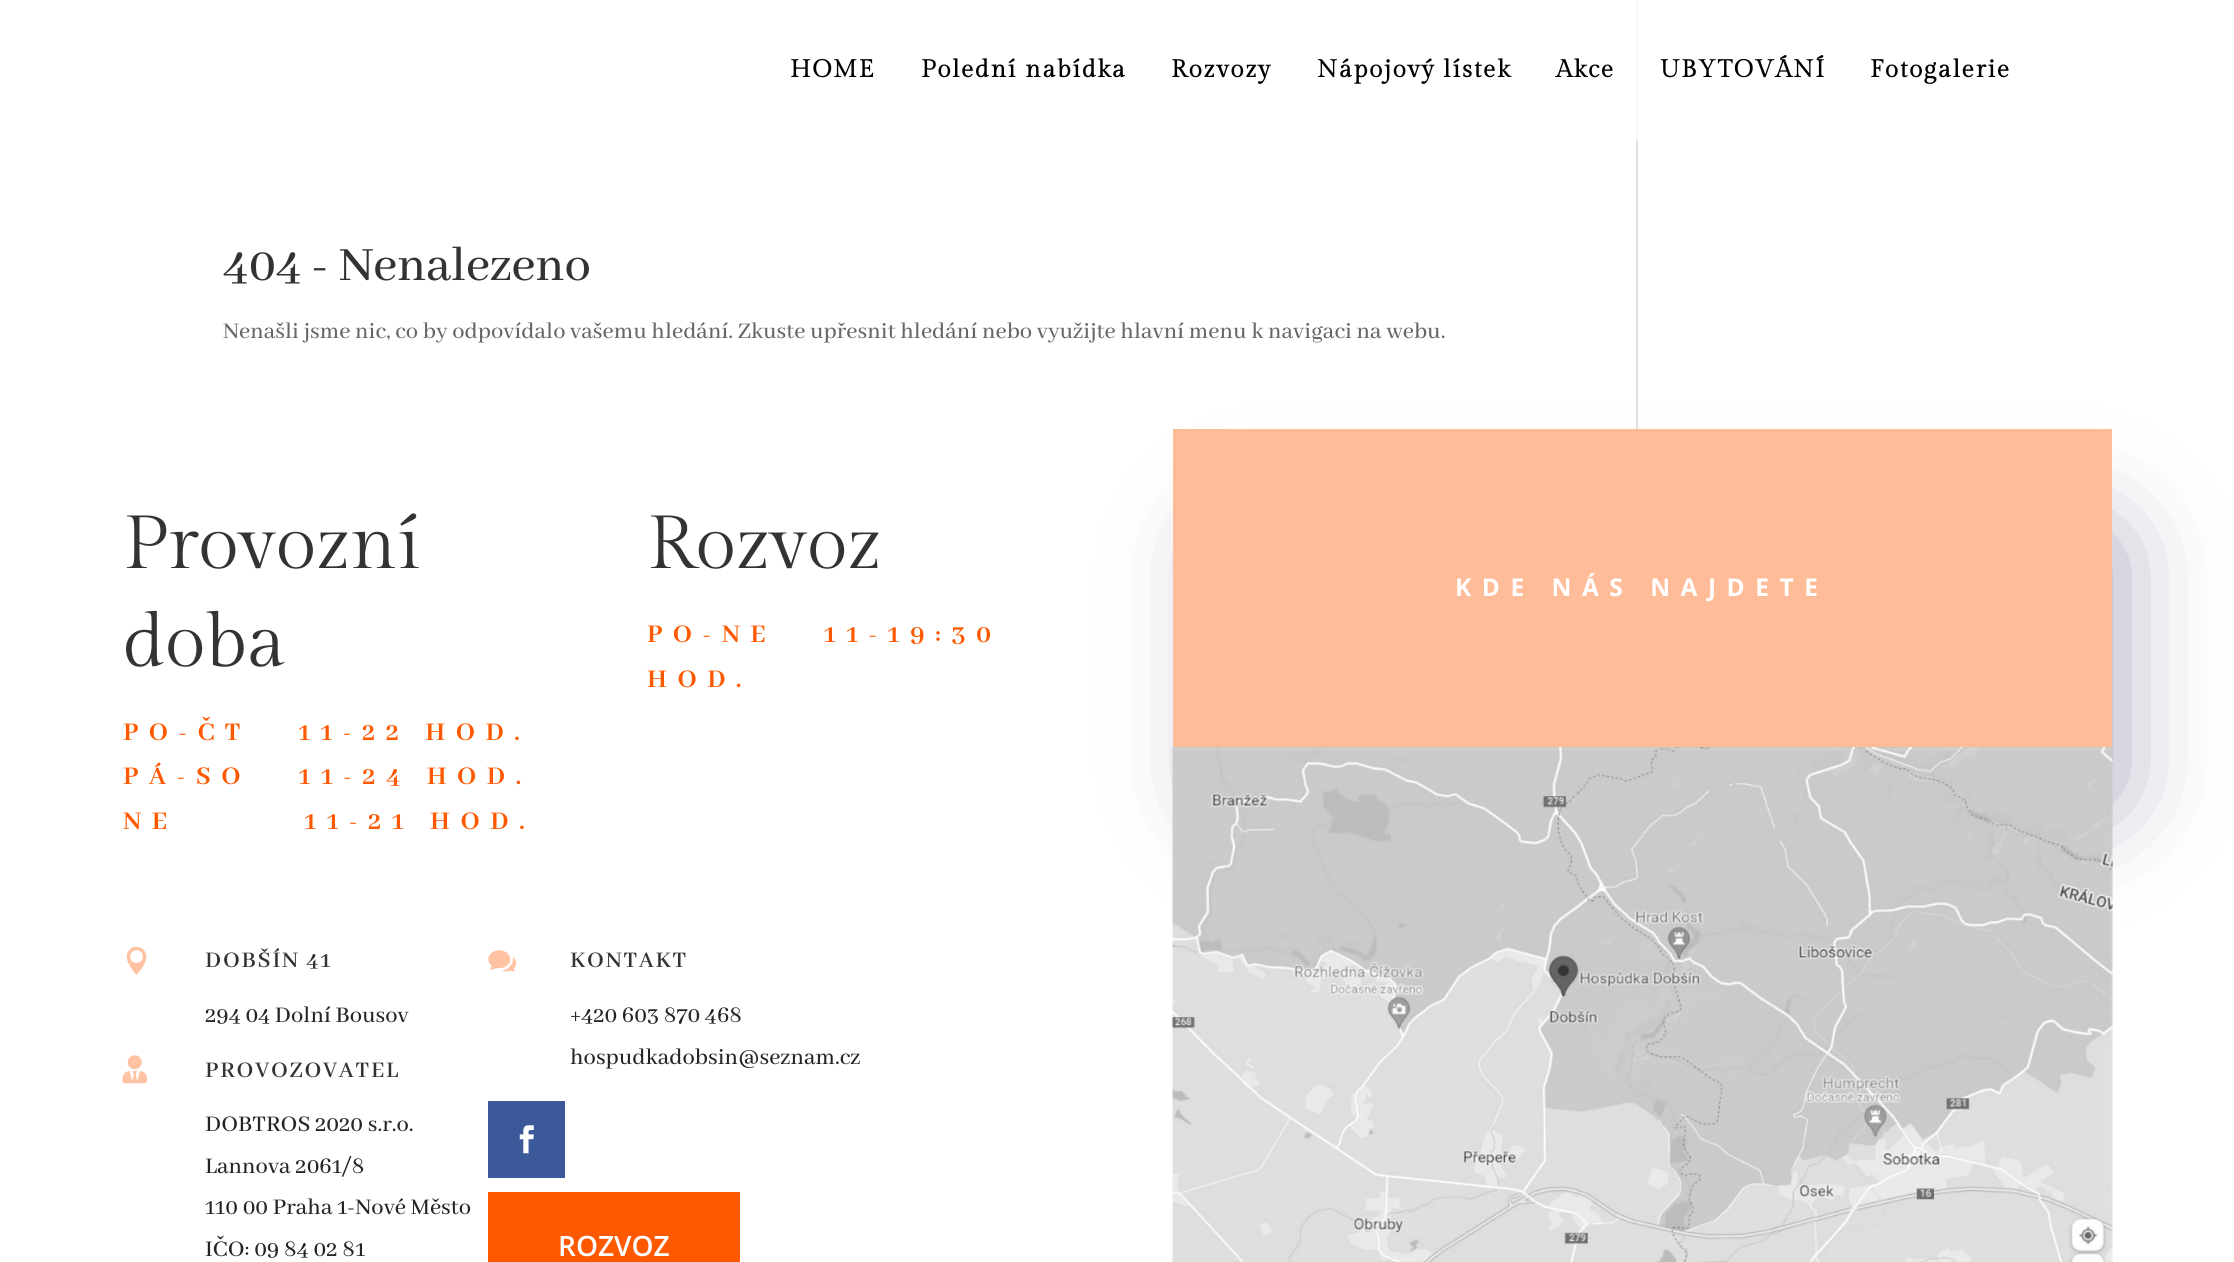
import math
import cairo

surface = cairo.ImageSurface(cairo.FORMAT_RGB24, 2234, 1262)
ctx = cairo.Context(surface)
options = cairo.FontOptions()
options.set_hint_metrics(cairo.HINT_METRICS_OFF)
options.set_hint_style(cairo.HINT_STYLE_NONE)
ctx.set_font_options(options)
ctx.set_miter_limit(4)


def spaced_text(x, y, s, letter, word):
    ctx.move_to(x, y)
    for ch in s:
        ctx.show_text(ch)
        ctx.rel_move_to(letter + word * (ch == ' '), 0)


def round_rect(x, y, w, h, r):
    ctx.new_sub_path()
    for i, (u, v) in enumerate([(x + w - r, y + h - r), (x + r, y + h - r), (x + r, y + r), (x + w - r, y + r)]):
        ctx.arc(u, v, r, i * math.pi / 2, (i + 1) * math.pi / 2)
    ctx.close_path()


def shadow(x, y, w, h, r, blur, alpha):
    ctx.push_group_with_content(cairo.CONTENT_ALPHA)
    ctx.set_operator(cairo.OPERATOR_SOURCE)
    for i in range(15, -16, -2):
        e = blur * i / 6
        if min(w, h) + 2 * e > 0:
            ctx.set_source_rgba(0, 0, 0, alpha * math.erfc((i - 1) / 8.5) / 2)
            round_rect(x - e, y - e, w + 2 * e, h + 2 * e, max(0, min(r + e + blur * .6, min(w, h) / 2 + e)))
            ctx.fill()
    ctx.mask(ctx.pop_group())


def picture(path, x, y, w, h):
    ctx.save()
    ctx.set_source_surface(cairo.ImageSurface.create_from_png(path), x, y)
    ctx.rectangle(x, y, w, h)
    ctx.fill()
    ctx.restore()


ctx.set_source_rgb(1, 1, 1)
ctx.paint()
ctx.select_font_face("Gilda Display", cairo.FONT_SLANT_NORMAL, cairo.FONT_WEIGHT_BOLD)
ctx.set_font_size(24.5)
ctx.set_source_rgb(0, 0, 0)
spaced_text(790, 77, "HOME", 1.75, 0)
spaced_text(921, 77, "Polední nabídka", 1.75, 0)
spaced_text(1171, 77, "Rozvozy", 1.75, 0)
spaced_text(1317, 77, "Nápojový lístek", 1.75, 0)
spaced_text(1556, 77, "Akce", 1.75, 0)
spaced_text(1660, 77, "UBYTOVÁNÍ", 1.75, 0)
spaced_text(1870, 77, "Fotogalerie", 1.75, 0)
ctx.select_font_face("Abhaya Libre Medium Medium")
ctx.set_font_size(52.5)
ctx.set_source_rgb(0.2, 0.2, 0.2)
ctx.move_to(223, 280)
ctx.show_text("404 - Nenalezeno")
ctx.set_font_size(24.5)
ctx.set_source_rgb(0.4, 0.4, 0.4)
ctx.move_to(223, 338)
ctx.show_text("Nenašli jsme nic, co by odpovídalo vašemu hledání. Zkuste upřesnit hledání nebo využijte hlavní menu k navigaci na webu.")
ctx.set_source_rgb(0.886, 0.886, 0.886)
ctx.rectangle(1636, 140, 2, 289)
ctx.fill()
ctx.set_source_rgb(0.976, 0.976, 0.976)
ctx.rectangle(1636, 0, 2, 140)
ctx.fill()
ctx.select_font_face("Gilda Display")
ctx.set_font_size(75)
ctx.set_source_rgb(0.2, 0.2, 0.2)
ctx.move_to(123, 568)
ctx.show_text("Provozní")
ctx.move_to(123, 666)
ctx.show_text("doba")
ctx.select_font_face("Abhaya Libre", cairo.FONT_SLANT_NORMAL, cairo.FONT_WEIGHT_BOLD)
ctx.set_font_size(28)
ctx.set_source_rgb(1, 0.349, 0)
spaced_text(123, 740, "PO-ČT   11-22 HOD.", 10.5, 0)
spaced_text(123, 784, "PÁ-SO   11-24 HOD.", 10.5, 0)
spaced_text(123, 829, "NE        11-21 HOD.", 10.5, 0)
ctx.select_font_face("Gilda Display")
ctx.set_font_size(75)
ctx.set_source_rgb(0.2, 0.2, 0.2)
ctx.move_to(647, 568)
ctx.show_text("Rozvoz")
ctx.select_font_face("Abhaya Libre", cairo.FONT_SLANT_NORMAL, cairo.FONT_WEIGHT_BOLD)
ctx.set_font_size(28)
ctx.set_source_rgb(1, 0.349, 0)
spaced_text(647, 642, "PO-NE   11-19:30", 10.5, 0)
spaced_text(647, 687, "HOD.", 10.5, 0)
picture("img1.png", 126, 946, 21, 29)
ctx.select_font_face("Abhaya Libre SemiBold SemiBold")
ctx.set_font_size(24.5)
ctx.set_source_rgb(0.2, 0.2, 0.2)
spaced_text(205, 967, "DOBŠÍN 41", 1.75, 0)
ctx.select_font_face("Abhaya Libre Medium Medium")
ctx.set_source_rgb(0.141, 0.141, 0.141)
ctx.move_to(205, 1022)
ctx.show_text("294 04 Dolní Bousov")
picture("img2.png", 122, 1055, 25, 29)
ctx.select_font_face("Abhaya Libre SemiBold SemiBold")
ctx.set_source_rgb(0.2, 0.2, 0.2)
spaced_text(205, 1077, "PROVOZOVATEL", 1.75, 0)
ctx.select_font_face("Abhaya Libre Medium Medium")
ctx.set_source_rgb(0.141, 0.141, 0.141)
ctx.move_to(205, 1131)
ctx.show_text("DOBTROS 2020 s.r.o.")
ctx.move_to(205, 1173)
ctx.show_text("Lannova 2061/8")
ctx.move_to(205, 1214)
ctx.show_text("110 00 Praha 1-Nové Město")
ctx.move_to(205, 1256)
ctx.show_text("IČO: 09 84 02 81")
picture("img3.png", 488, 950, 29, 22)
ctx.select_font_face("Abhaya Libre SemiBold SemiBold")
ctx.set_source_rgb(0.2, 0.2, 0.2)
spaced_text(570, 967, "KONTAKT", 1.75, 0)
ctx.select_font_face("Abhaya Libre Medium Medium")
ctx.set_source_rgb(0.141, 0.141, 0.141)
ctx.move_to(570, 1022)
ctx.show_text("+420 603 870 468")
ctx.move_to(570, 1064)
ctx.show_text("hospudkadobsin@seznam.cz")
ctx.set_source_rgb(0.231, 0.349, 0.596)
ctx.rectangle(488, 1101, 77, 77)
ctx.fill()
picture("img4.png", 519, 1125, 15, 29)
ctx.set_source_rgb(1, 0.349, 0)
ctx.rectangle(488, 1192, 252, 70)
ctx.fill()
ctx.select_font_face("Open Sans SemiBold")
ctx.set_font_size(28)
ctx.set_source_rgb(1, 1, 1)
ctx.move_to(558, 1256)
ctx.show_text("ROZVOZ")
ctx.set_source_rgb(0.004, 0.016, 0.259)
shadow(1234, 544, 870, 249, 0, 56, 0.44)
ctx.set_source_rgb(1, 0.737, 0.6)
ctx.rectangle(1173, 429, 939, 318)
ctx.fill()
ctx.select_font_face("Open Sans", cairo.FONT_SLANT_NORMAL, cairo.FONT_WEIGHT_BOLD)
ctx.set_font_size(24.5)
ctx.set_source_rgb(1, 1, 1)
spaced_text(1455, 596, "KDE NÁS NAJDETE", 10.5, 0)
picture("img5.png", 1171, 747, 942, 515)
surface.write_to_png("page.png")
